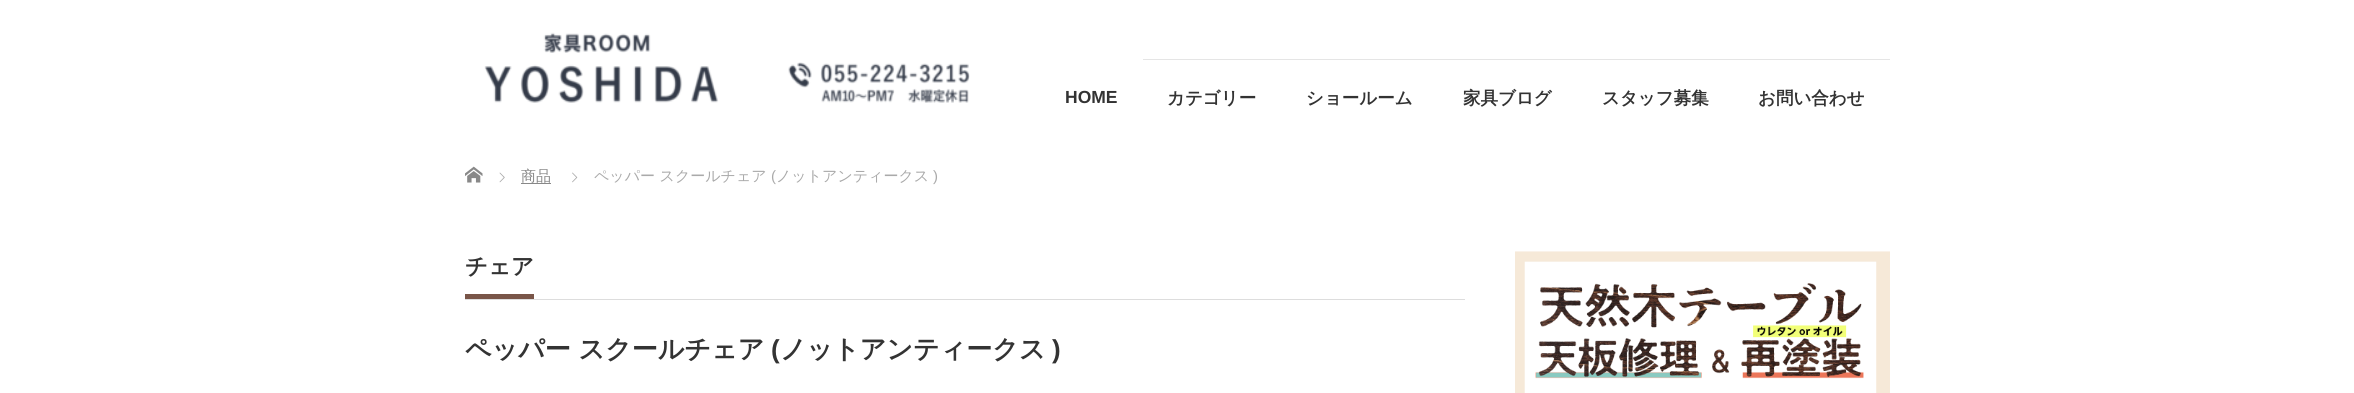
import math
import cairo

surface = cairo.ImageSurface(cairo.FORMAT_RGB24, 2354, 393)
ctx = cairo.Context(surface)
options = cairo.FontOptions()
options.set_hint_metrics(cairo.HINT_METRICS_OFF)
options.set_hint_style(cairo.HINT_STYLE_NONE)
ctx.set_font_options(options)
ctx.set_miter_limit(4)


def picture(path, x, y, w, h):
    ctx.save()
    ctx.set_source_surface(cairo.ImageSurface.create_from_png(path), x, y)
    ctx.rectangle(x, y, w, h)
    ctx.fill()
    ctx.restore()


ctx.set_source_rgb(1, 1, 1)
ctx.paint()
picture("img1.png", 484, 32, 486, 71)
ctx.select_font_face("Liberation Sans", cairo.FONT_SLANT_NORMAL, cairo.FONT_WEIGHT_BOLD)
ctx.set_font_size(17.5)
ctx.set_source_rgb(0.2, 0.2, 0.2)
ctx.move_to(1065, 103)
ctx.show_text("HOME")
ctx.set_source_rgb(0.898, 0.898, 0.898)
ctx.rectangle(1143, 59, 747, 1)
ctx.fill()
ctx.select_font_face("WenQuanYi Zen Hei", cairo.FONT_SLANT_NORMAL, cairo.FONT_WEIGHT_BOLD)
ctx.set_source_rgb(0.2, 0.2, 0.2)
ctx.move_to(1167, 104)
ctx.show_text("カテゴリー")
ctx.move_to(1306, 104)
ctx.show_text("ショールーム")
ctx.move_to(1463, 104)
ctx.show_text("家具ブログ")
ctx.move_to(1602, 104)
ctx.show_text("スタッフ募集")
ctx.move_to(1758, 104)
ctx.show_text("お問い合わせ")
picture("img2.png", 465, 166, 18, 17)
picture("img3.png", 499, 172, 6, 11)
ctx.select_font_face("WenQuanYi Zen Hei Medium")
ctx.set_font_size(15)
ctx.set_source_rgb(0.533, 0.533, 0.533)
ctx.move_to(521, 181)
ctx.show_text("商品")
ctx.rectangle(521, 183, 30, 1)
ctx.fill()
picture("img4.png", 572, 172, 6, 11)
ctx.set_source_rgb(0.667, 0.667, 0.667)
ctx.move_to(594, 181)
ctx.show_text("ペッパー スクールチェア")
ctx.select_font_face("Liberation Sans")
ctx.move_to(771, 181)
ctx.show_text("(")
ctx.select_font_face("WenQuanYi Zen Hei Medium")
ctx.move_to(776, 181)
ctx.show_text("ノットアンティークス")
ctx.select_font_face("Liberation Sans")
ctx.move_to(933, 181)
ctx.show_text(")")
ctx.set_source_rgb(0.867, 0.867, 0.867)
ctx.rectangle(465, 299, 1000, 1)
ctx.fill()
ctx.set_source_rgb(0.475, 0.333, 0.282)
ctx.rectangle(465, 294, 69, 5)
ctx.fill()
ctx.select_font_face("WenQuanYi Zen Hei", cairo.FONT_SLANT_NORMAL, cairo.FONT_WEIGHT_BOLD)
ctx.set_font_size(22.5)
ctx.set_source_rgb(0.2, 0.2, 0.2)
ctx.move_to(465, 274)
ctx.show_text("チェア")
ctx.set_font_size(26)
ctx.move_to(465, 358)
ctx.show_text("ペッパー スクールチェア")
ctx.select_font_face("Liberation Sans", cairo.FONT_SLANT_NORMAL, cairo.FONT_WEIGHT_BOLD)
ctx.move_to(771, 358)
ctx.show_text("(")
ctx.select_font_face("WenQuanYi Zen Hei", cairo.FONT_SLANT_NORMAL, cairo.FONT_WEIGHT_BOLD)
ctx.move_to(780, 358)
ctx.show_text("ノットアンティークス")
ctx.select_font_face("Liberation Sans", cairo.FONT_SLANT_NORMAL, cairo.FONT_WEIGHT_BOLD)
ctx.move_to(1052, 358)
ctx.show_text(")")
picture("img5.png", 1515, 251, 375, 142)
surface.write_to_png("page.png")
